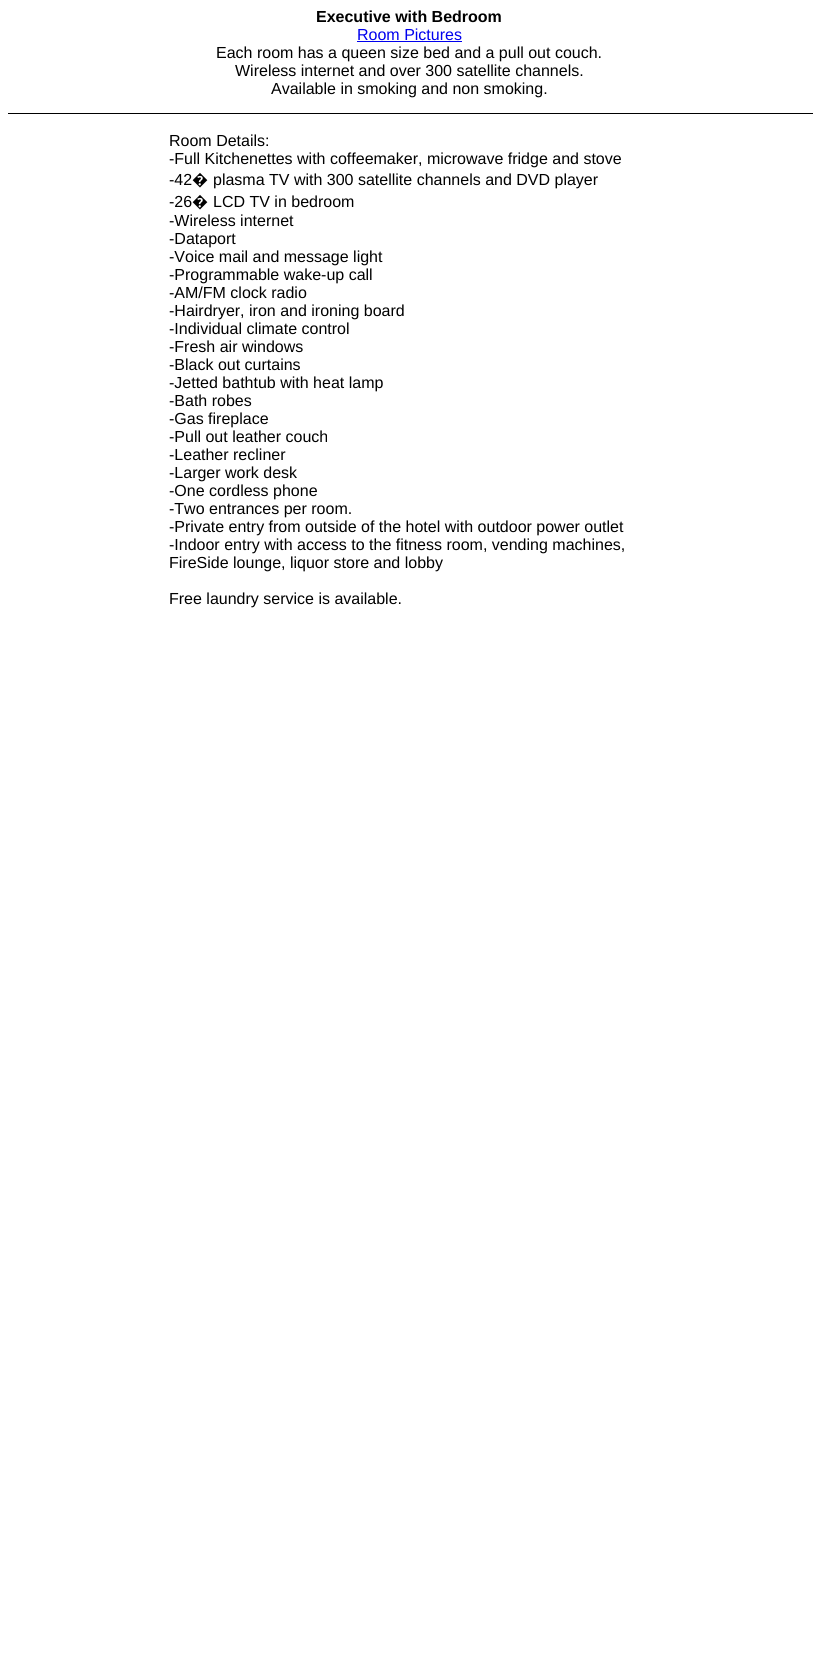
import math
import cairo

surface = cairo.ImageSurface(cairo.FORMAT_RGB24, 820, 1671)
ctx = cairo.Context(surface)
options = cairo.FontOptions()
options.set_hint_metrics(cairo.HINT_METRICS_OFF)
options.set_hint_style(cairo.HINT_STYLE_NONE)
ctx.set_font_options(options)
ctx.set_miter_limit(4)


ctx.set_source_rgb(1, 1, 1)
ctx.paint()
ctx.select_font_face("Liberation Sans", cairo.FONT_SLANT_NORMAL, cairo.FONT_WEIGHT_BOLD)
ctx.set_font_size(16)
ctx.set_source_rgb(0, 0, 0)
ctx.move_to(316, 22)
ctx.show_text("Executive with Bedroom")
ctx.select_font_face("Liberation Sans")
ctx.set_source_rgb(0, 0, 0.933)
ctx.move_to(357, 40)
ctx.show_text("Room Pictures")
ctx.rectangle(357, 41, 105, 1)
ctx.fill()
ctx.set_source_rgb(0, 0, 0)
ctx.move_to(216, 58)
ctx.show_text("Each room has a queen size bed and a pull out couch.")
ctx.move_to(235, 76)
ctx.show_text("Wireless internet and over 300 satellite channels.")
ctx.move_to(271, 94)
ctx.show_text("Available in smoking and non smoking.")
ctx.rectangle(8, 113, 805, 1)
ctx.fill()
ctx.move_to(169, 146)
ctx.show_text("Room Details:")
ctx.move_to(169, 164)
ctx.show_text("-Full Kitchenettes with coffeemaker, microwave fridge and stove")
ctx.move_to(169, 185)
ctx.show_text("-42")
ctx.select_font_face("Noto Sans")
ctx.move_to(192, 185)
ctx.show_text("�")
ctx.select_font_face("Liberation Sans")
ctx.move_to(213, 185)
ctx.show_text("plasma TV with 300 satellite channels and DVD player")
ctx.move_to(169, 207)
ctx.show_text("-26")
ctx.select_font_face("Noto Sans")
ctx.move_to(192, 207)
ctx.show_text("�")
ctx.select_font_face("Liberation Sans")
ctx.move_to(213, 207)
ctx.show_text("LCD TV in bedroom")
ctx.move_to(169, 226)
ctx.show_text("-Wireless internet")
ctx.move_to(169, 244)
ctx.show_text("-Dataport")
ctx.move_to(169, 262)
ctx.show_text("-Voice mail and message light")
ctx.move_to(169, 280)
ctx.show_text("-Programmable wake-up call")
ctx.move_to(169, 298)
ctx.show_text("-AM/FM clock radio")
ctx.move_to(169, 316)
ctx.show_text("-Hairdryer, iron and ironing board")
ctx.move_to(169, 334)
ctx.show_text("-Individual climate control")
ctx.move_to(169, 352)
ctx.show_text("-Fresh air windows")
ctx.move_to(169, 370)
ctx.show_text("-Black out curtains")
ctx.move_to(169, 388)
ctx.show_text("-Jetted bathtub with heat lamp")
ctx.move_to(169, 406)
ctx.show_text("-Bath robes")
ctx.move_to(169, 424)
ctx.show_text("-Gas fireplace")
ctx.move_to(169, 442)
ctx.show_text("-Pull out leather couch")
ctx.move_to(169, 460)
ctx.show_text("-Leather recliner")
ctx.move_to(169, 478)
ctx.show_text("-Larger work desk")
ctx.move_to(169, 496)
ctx.show_text("-One cordless phone")
ctx.move_to(169, 514)
ctx.show_text("-Two entrances per room.")
ctx.move_to(169, 532)
ctx.show_text("-Private entry from outside of the hotel with outdoor power outlet")
ctx.move_to(169, 550)
ctx.show_text("-Indoor entry with access to the fitness room, vending machines,")
ctx.move_to(169, 568)
ctx.show_text("FireSide lounge, liquor store and lobby")
ctx.move_to(169, 604)
ctx.show_text("Free laundry service is available.")
surface.write_to_png("page.png")
